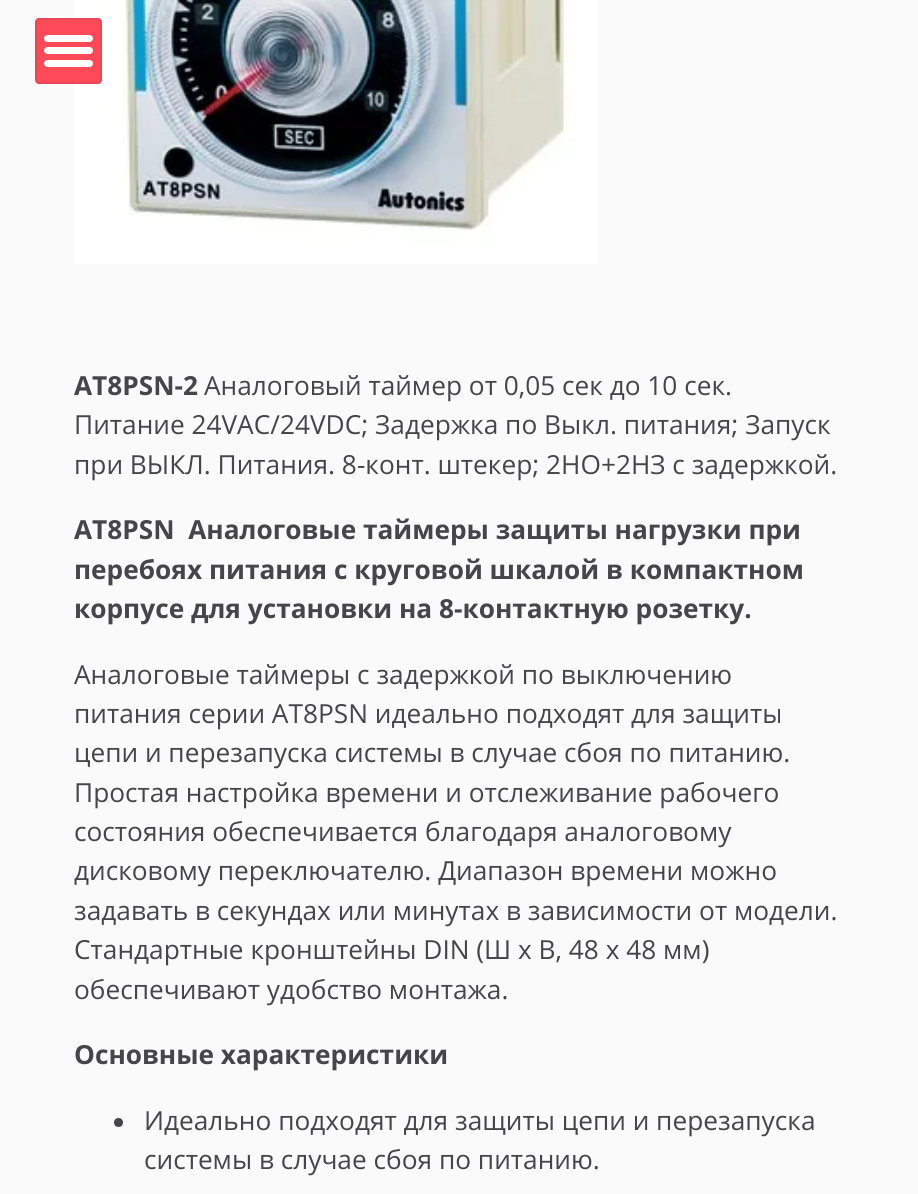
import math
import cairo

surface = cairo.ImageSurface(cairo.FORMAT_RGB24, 918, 1194)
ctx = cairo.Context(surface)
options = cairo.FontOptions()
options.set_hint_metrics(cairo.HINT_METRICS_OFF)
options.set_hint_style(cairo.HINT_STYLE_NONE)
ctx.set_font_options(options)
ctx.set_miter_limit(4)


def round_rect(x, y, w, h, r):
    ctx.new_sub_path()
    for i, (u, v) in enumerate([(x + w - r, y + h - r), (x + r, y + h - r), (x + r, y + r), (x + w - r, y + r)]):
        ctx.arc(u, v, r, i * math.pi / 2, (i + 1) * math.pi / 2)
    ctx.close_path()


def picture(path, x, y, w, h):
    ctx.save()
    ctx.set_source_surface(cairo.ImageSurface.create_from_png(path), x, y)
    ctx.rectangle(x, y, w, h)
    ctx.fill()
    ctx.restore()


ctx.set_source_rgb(0.98, 0.98, 0.98)
ctx.paint()
picture("img1.png", 74, 0, 524, 264)
ctx.set_source_rgb(0.988, 0.29, 0.345)
round_rect(35, 18, 67, 66, 4)
ctx.fill()
round_rect(36, 19, 65, 64, 3)
ctx.set_source_rgba(0.306, 0.204, 0.4, 0.11)
ctx.stroke()
ctx.set_source_rgb(1, 1, 1)
round_rect(44, 35, 49, 7, 3.5)
ctx.fill()
round_rect(44, 47, 49, 7, 3.5)
ctx.fill()
round_rect(44, 60, 49, 7, 3.5)
ctx.fill()
ctx.select_font_face("Open Sans", cairo.FONT_SLANT_NORMAL, cairo.FONT_WEIGHT_BOLD)
ctx.set_font_size(26.25)
ctx.set_source_rgb(0.275, 0.275, 0.286)
ctx.move_to(74, 395)
ctx.show_text("AT8PSN-2")
ctx.select_font_face("Open Sans")
ctx.move_to(204, 395)
ctx.show_text("Аналоговый таймер от 0,05 сек до 10 сек.")
ctx.move_to(74, 434)
ctx.show_text("Питание 24VAC/24VDC; Задержка по Выкл. питания; Запуск")
ctx.move_to(74, 474)
ctx.show_text("при ВЫКЛ. Питания. 8-конт. штекер; 2НО+2НЗ с задержкой.")
ctx.select_font_face("Open Sans", cairo.FONT_SLANT_NORMAL, cairo.FONT_WEIGHT_BOLD)
ctx.move_to(74, 539)
ctx.show_text("AT8PSN  Аналоговые таймеры защиты нагрузки при")
ctx.move_to(74, 579)
ctx.show_text("перебоях питания с круговой шкалой в компактном")
ctx.move_to(74, 618)
ctx.show_text("корпусе для установки на 8-контактную розетку.")
ctx.select_font_face("Open Sans")
ctx.move_to(74, 684)
ctx.show_text("Аналоговые таймеры с задержкой по выключению")
ctx.move_to(74, 723)
ctx.show_text("питания серии AT8PSN идеально подходят для защиты")
ctx.move_to(74, 762)
ctx.show_text("цепи и перезапуска системы в случае сбоя по питанию.")
ctx.move_to(74, 802)
ctx.show_text("Простая настройка времени и отслеживание рабочего")
ctx.move_to(74, 841)
ctx.show_text("состояния обеспечивается благодаря аналоговому")
ctx.move_to(74, 880)
ctx.show_text("дисковому переключателю. Диапазон времени можно")
ctx.move_to(74, 920)
ctx.show_text("задавать в секундах или минутах в зависимости от модели.")
ctx.move_to(74, 959)
ctx.show_text("Стандартные кронштейны DIN (Ш х В, 48 x 48 мм)")
ctx.move_to(74, 999)
ctx.show_text("обеспечивают удобство монтажа.")
ctx.select_font_face("Open Sans", cairo.FONT_SLANT_NORMAL, cairo.FONT_WEIGHT_BOLD)
ctx.move_to(74, 1064)
ctx.show_text("Основные характеристики")
ctx.new_path()
ctx.arc(118.5, 1122.5, 4.5, 0, 2 * math.pi)
ctx.fill()
ctx.select_font_face("Open Sans")
ctx.move_to(144, 1130)
ctx.show_text("Идеально подходят для защиты цепи и перезапуска")
ctx.move_to(144, 1169)
ctx.show_text("системы в случае сбоя по питанию.")
surface.write_to_png("page.png")
